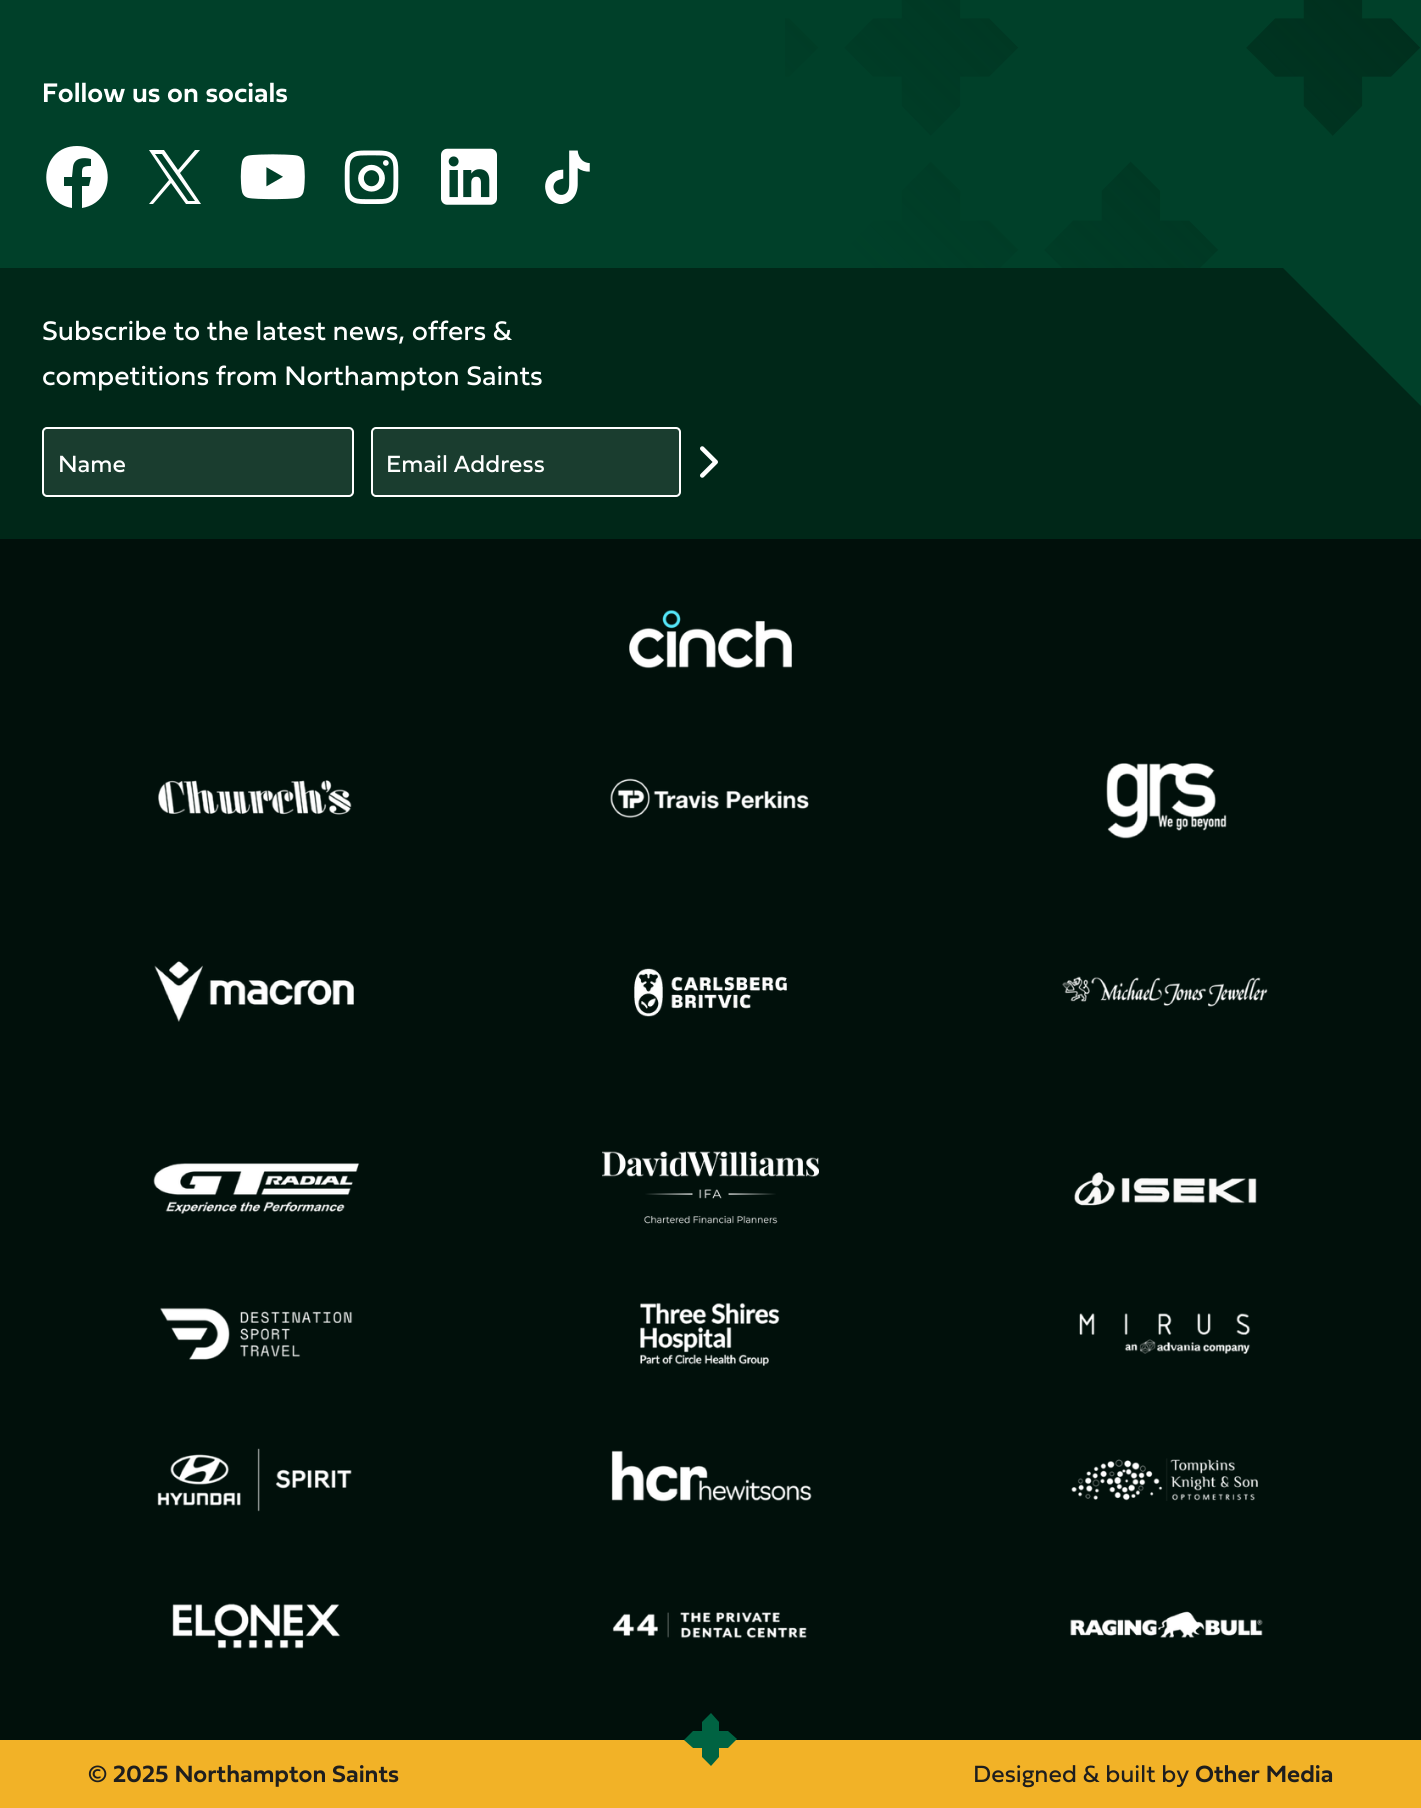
import math
import cairo

surface = cairo.ImageSurface(cairo.FORMAT_RGB24, 1421, 1808)
ctx = cairo.Context(surface)
options = cairo.FontOptions()
options.set_hint_metrics(cairo.HINT_METRICS_OFF)
options.set_hint_style(cairo.HINT_STYLE_NONE)
ctx.set_font_options(options)
ctx.set_miter_limit(4)


def round_rect(x, y, w, h, r):
    ctx.new_sub_path()
    for i, (u, v) in enumerate([(x + w - r, y + h - r), (x + r, y + h - r), (x + r, y + r), (x + w - r, y + r)]):
        ctx.arc(u, v, r, i * math.pi / 2, (i + 1) * math.pi / 2)
    ctx.close_path()


def picture(path, x, y, w, h):
    ctx.save()
    ctx.set_source_surface(cairo.ImageSurface.create_from_png(path), x, y)
    ctx.rectangle(x, y, w, h)
    ctx.fill()
    ctx.restore()


ctx.set_source_rgb(0.004, 0.063, 0.043)
ctx.paint()
ctx.set_source_rgb(0, 0.251, 0.161)
ctx.rectangle(0, 0, 1421, 268)
ctx.fill()
picture("img1.png", 785, 0, 635, 268)
ctx.select_font_face("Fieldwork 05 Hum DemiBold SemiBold")
ctx.set_font_size(28)
ctx.set_source_rgb(1, 1, 1)
ctx.move_to(42, 102)
ctx.show_text("Follow us on socials")
ctx.set_fill_rule(cairo.FILL_RULE_EVEN_ODD)
ctx.new_path()
ctx.move_to(77, 146)
ctx.curve_to(39, 146, 35, 202, 72, 208)
ctx.line_to(72, 186)
ctx.line_to(64, 186)
ctx.line_to(64, 177)
ctx.line_to(72, 177)
ctx.line_to(73, 167)
ctx.curve_to(74, 158, 83, 157, 91, 159)
ctx.line_to(91, 166)
ctx.curve_to(81, 166, 82, 168, 82, 177)
ctx.line_to(91, 177)
ctx.line_to(89, 186)
ctx.line_to(82, 186)
ctx.line_to(82, 208)
ctx.curve_to(119, 202, 115, 146, 77, 146)
ctx.fill()
ctx.set_fill_rule(cairo.FILL_RULE_WINDING)
ctx.new_path()
ctx.move_to(180, 173)
ctx.line_to(200, 150)
ctx.line_to(195, 150)
ctx.line_to(178, 170)
ctx.line_to(164, 150)
ctx.line_to(149, 150)
ctx.line_to(169, 180)
ctx.line_to(149, 204)
ctx.line_to(153, 204)
ctx.line_to(171, 183)
ctx.line_to(186, 204)
ctx.line_to(201, 204)
ctx.close_path()
ctx.move_to(174, 181)
ctx.line_to(155, 154)
ctx.line_to(162, 154)
ctx.line_to(195, 201)
ctx.line_to(188, 201)
ctx.close_path()
ctx.fill()
picture("img2.png", 240, 154, 65, 46)
picture("img3.png", 344, 150, 55, 54)
picture("img4.png", 441, 148, 56, 57)
picture("img5.png", 545, 150, 45, 54)
ctx.set_source_rgb(0, 0.153, 0.094)
ctx.rectangle(0, 268, 1421, 271)
ctx.fill()
ctx.select_font_face("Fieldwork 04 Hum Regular")
ctx.set_source_rgb(1, 1, 1)
ctx.move_to(42, 340)
ctx.show_text("Subscribe to the latest news, offers &")
ctx.move_to(42, 385)
ctx.show_text("competitions from Northampton Saints")
ctx.set_source_rgb(0.102, 0.239, 0.184)
round_rect(43, 428, 310, 68, 4)
ctx.fill_preserve()
ctx.set_source_rgb(1, 1, 1)
ctx.stroke()
ctx.set_font_size(24.5)
ctx.move_to(58, 472)
ctx.show_text("Name")
ctx.set_source_rgb(0.102, 0.239, 0.184)
round_rect(372, 428, 308, 68, 4)
ctx.fill_preserve()
ctx.set_source_rgb(1, 1, 1)
ctx.stroke()
ctx.move_to(386, 472)
ctx.show_text("Email Address")
picture("img6.png", 700, 446, 18, 32)
ctx.set_source_rgb(0, 0.251, 0.161)
ctx.new_path()
ctx.move_to(1421, 266)
ctx.line_to(1421, 406)
ctx.line_to(1281, 266)
ctx.close_path()
ctx.fill()
picture("img7.png", 629, 610, 163, 59)
picture("img8.png", 158, 780, 194, 35)
picture("img9.png", 610, 778, 199, 40)
picture("img10.png", 1106, 763, 121, 76)
picture("img11.png", 154, 961, 200, 61)
picture("img12.png", 634, 968, 153, 49)
picture("img13.png", 1062, 976, 206, 31)
picture("img14.png", 153, 1163, 207, 51)
picture("img15.png", 602, 1151, 217, 73)
picture("img16.png", 1074, 1172, 183, 34)
picture("img17.png", 160, 1307, 193, 53)
picture("img18.png", 640, 1302, 140, 64)
picture("img19.png", 1079, 1313, 172, 41)
picture("img20.png", 157, 1448, 195, 64)
picture("img21.png", 611, 1450, 201, 52)
picture("img22.png", 1071, 1458, 187, 43)
picture("img23.png", 172, 1603, 169, 46)
picture("img24.png", 612, 1612, 195, 27)
picture("img25.png", 1070, 1611, 193, 27)
ctx.set_source_rgb(0.949, 0.698, 0.153)
ctx.rectangle(0, 1740, 1421, 68)
ctx.fill()
ctx.set_source_rgb(0, 0.388, 0.259)
ctx.set_fill_rule(cairo.FILL_RULE_EVEN_ODD)
ctx.new_path()
ctx.move_to(702, 1731)
ctx.line_to(702, 1722)
ctx.line_to(711, 1713)
ctx.line_to(719, 1722)
ctx.line_to(719, 1731)
ctx.line_to(728, 1731)
ctx.line_to(737, 1739)
ctx.line_to(728, 1748)
ctx.line_to(719, 1748)
ctx.line_to(719, 1757)
ctx.line_to(711, 1766)
ctx.line_to(702, 1757)
ctx.line_to(702, 1748)
ctx.line_to(693, 1748)
ctx.line_to(684, 1740)
ctx.line_to(693, 1731)
ctx.close_path()
ctx.fill()
ctx.select_font_face("Fieldwork 05 Hum DemiBold SemiBold")
ctx.set_source_rgb(0.118, 0.118, 0.118)
ctx.move_to(88, 1782)
ctx.show_text("© 2025 Northampton Saints")
ctx.select_font_face("Fieldwork 04 Hum Regular")
ctx.move_to(973, 1782)
ctx.show_text("Designed & built by")
ctx.select_font_face("Fieldwork 05 Hum DemiBold SemiBold")
ctx.move_to(1195, 1782)
ctx.show_text("Other Media")
surface.write_to_png("page.png")
